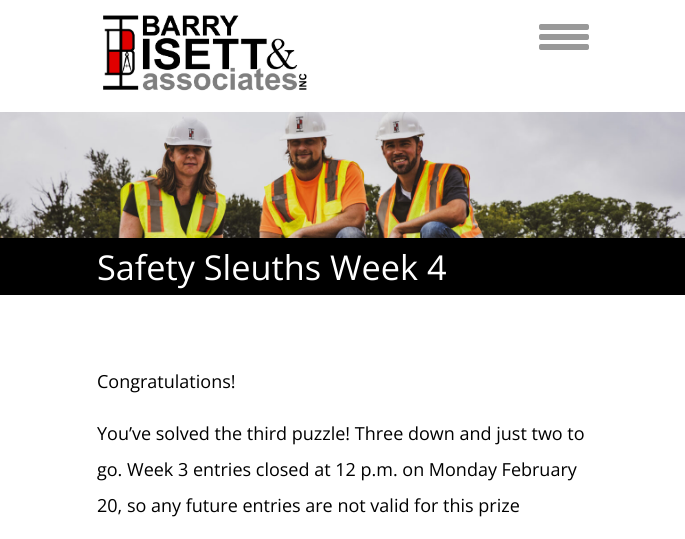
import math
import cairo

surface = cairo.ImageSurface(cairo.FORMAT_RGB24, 685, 539)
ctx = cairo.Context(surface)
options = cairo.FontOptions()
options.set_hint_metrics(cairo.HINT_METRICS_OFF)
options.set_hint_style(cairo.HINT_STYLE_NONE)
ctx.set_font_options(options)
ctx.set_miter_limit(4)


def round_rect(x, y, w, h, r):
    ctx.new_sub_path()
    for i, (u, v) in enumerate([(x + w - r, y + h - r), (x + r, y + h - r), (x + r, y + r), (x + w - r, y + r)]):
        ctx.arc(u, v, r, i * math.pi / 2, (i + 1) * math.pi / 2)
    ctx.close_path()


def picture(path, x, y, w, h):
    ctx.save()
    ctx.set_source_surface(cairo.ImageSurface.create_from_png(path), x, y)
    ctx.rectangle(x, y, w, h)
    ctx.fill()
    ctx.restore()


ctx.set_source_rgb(1, 1, 1)
ctx.paint()
picture("img1.png", 103, 15, 204, 76)
ctx.set_source_rgb(0.6, 0.6, 0.6)
round_rect(539, 24, 50, 6, 2)
ctx.fill()
round_rect(539, 34, 50, 6, 2)
ctx.fill()
round_rect(539, 44, 50, 6, 2)
ctx.fill()
picture("img2.png", 0, 112, 685, 126)
ctx.set_source_rgb(0, 0, 0)
ctx.rectangle(0, 238, 685, 57)
ctx.fill()
ctx.select_font_face("Open Sans")
ctx.set_font_size(34.25)
ctx.set_source_rgb(1, 1, 1)
ctx.move_to(97, 280)
ctx.show_text("Safety Sleuths Week 4")
ctx.set_font_size(18)
ctx.set_source_rgb(0, 0, 0)
ctx.move_to(97, 388)
ctx.show_text("Congratulations!")
ctx.move_to(97, 440)
ctx.show_text("You’ve solved the third puzzle! Three down and just two to")
ctx.move_to(97, 476)
ctx.show_text("go. Week 3 entries closed at 12 p.m. on Monday February")
ctx.move_to(97, 512)
ctx.show_text("20, so any future entries are not valid for this prize")
surface.write_to_png("page.png")
